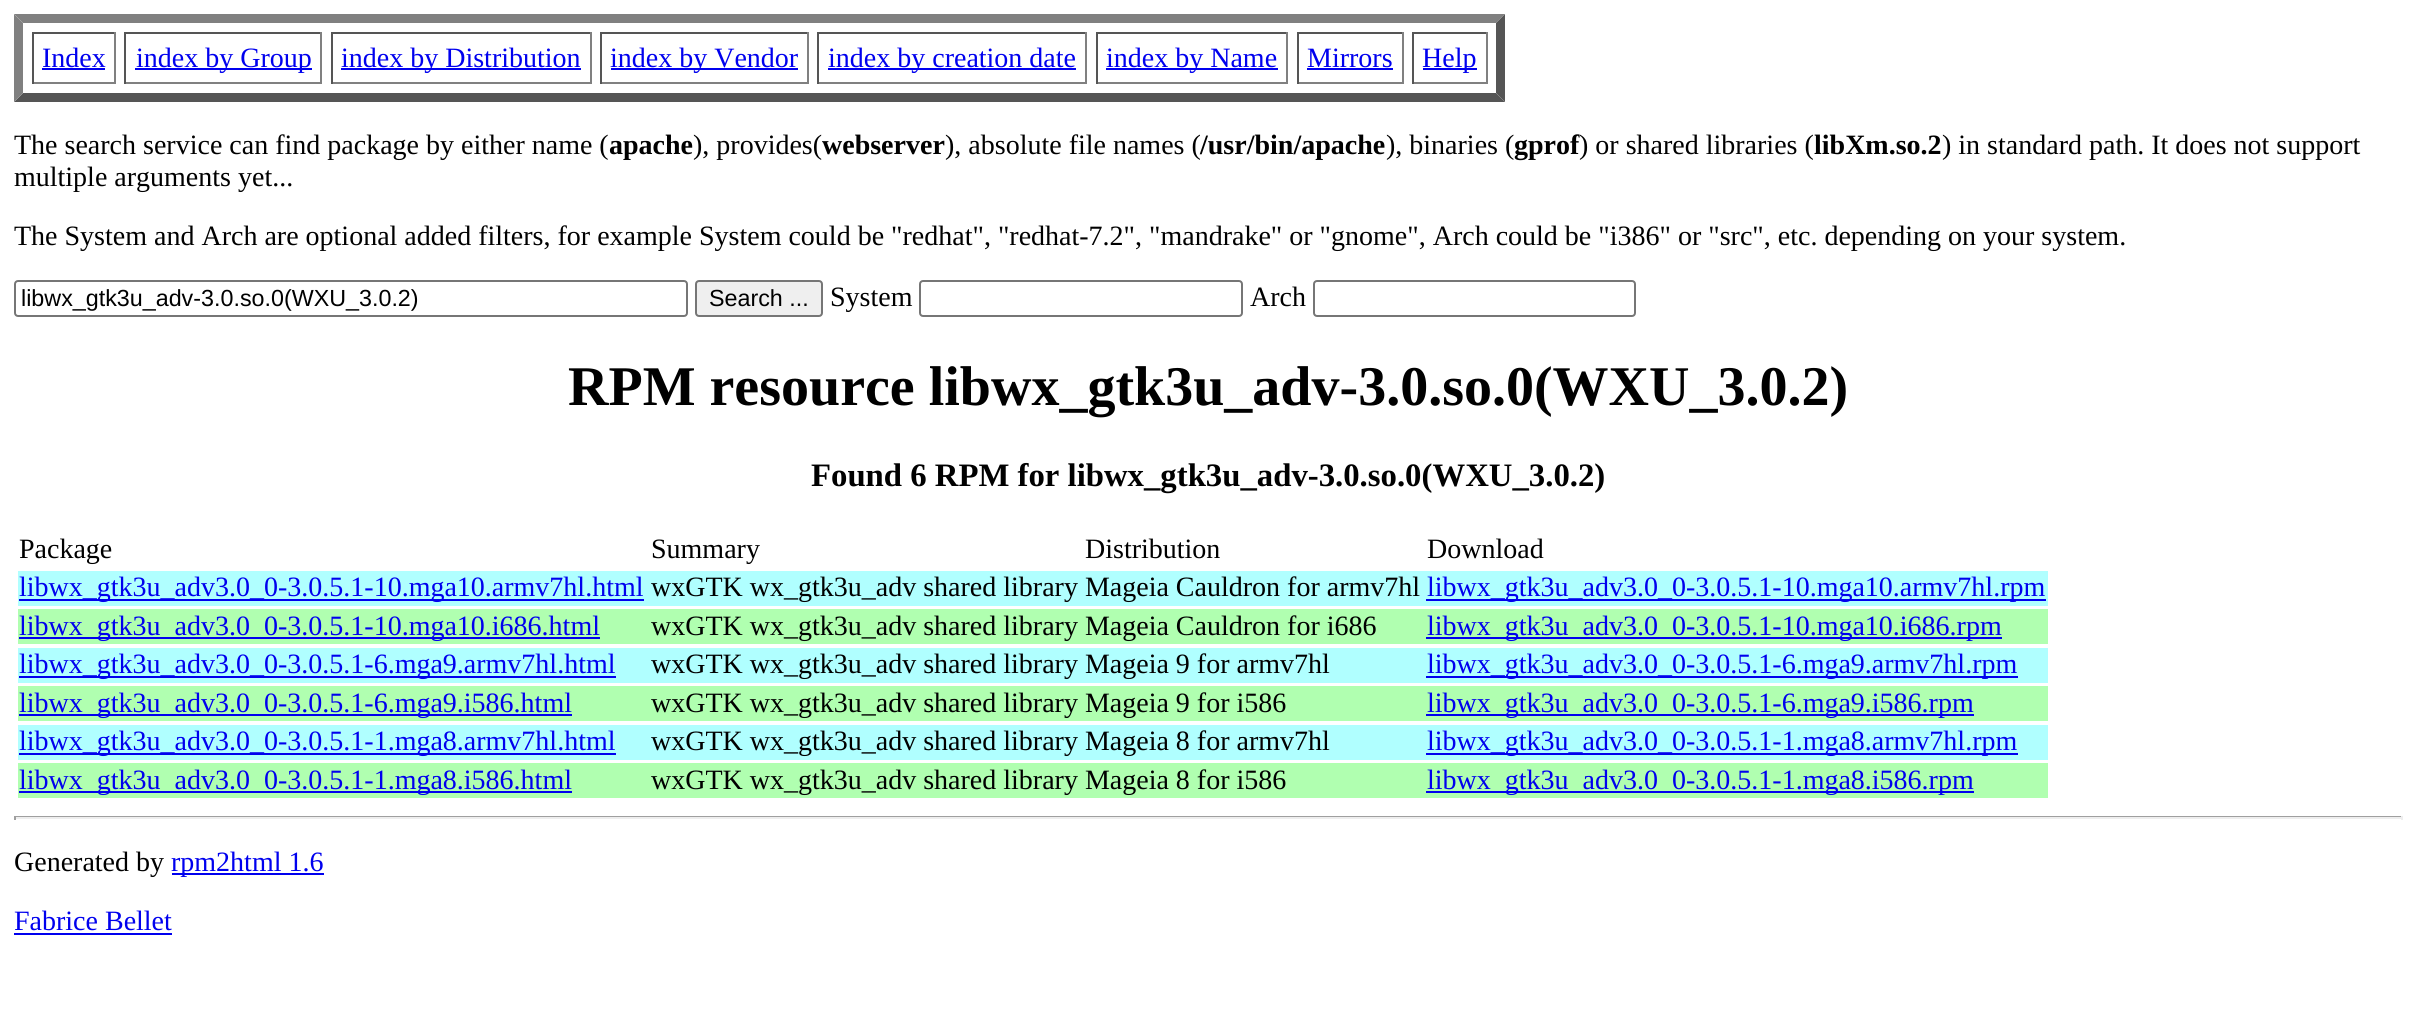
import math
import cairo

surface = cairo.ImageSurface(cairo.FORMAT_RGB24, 2416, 1019)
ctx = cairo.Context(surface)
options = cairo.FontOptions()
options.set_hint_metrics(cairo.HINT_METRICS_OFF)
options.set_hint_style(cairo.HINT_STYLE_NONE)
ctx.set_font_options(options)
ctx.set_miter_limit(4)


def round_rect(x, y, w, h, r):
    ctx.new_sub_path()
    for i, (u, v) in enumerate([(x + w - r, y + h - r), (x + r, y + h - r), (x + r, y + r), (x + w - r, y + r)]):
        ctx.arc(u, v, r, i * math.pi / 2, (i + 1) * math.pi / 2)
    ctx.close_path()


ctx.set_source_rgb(1, 1, 1)
ctx.paint()
ctx.set_source_rgb(0.502, 0.502, 0.502)
ctx.new_path()
ctx.move_to(14, 14)
ctx.line_to(1505, 14)
ctx.line_to(1496, 23)
ctx.line_to(23, 23)
ctx.close_path()
ctx.fill()
ctx.set_source_rgb(0.333, 0.333, 0.333)
ctx.new_path()
ctx.move_to(1505, 14)
ctx.line_to(1505, 102)
ctx.line_to(1496, 93)
ctx.line_to(1496, 23)
ctx.close_path()
ctx.fill()
ctx.new_path()
ctx.move_to(1505, 102)
ctx.line_to(14, 102)
ctx.line_to(23, 93)
ctx.line_to(1496, 93)
ctx.close_path()
ctx.fill()
ctx.set_source_rgb(0.502, 0.502, 0.502)
ctx.new_path()
ctx.move_to(14, 102)
ctx.line_to(14, 14)
ctx.line_to(23, 23)
ctx.line_to(23, 93)
ctx.close_path()
ctx.fill()
ctx.set_source_rgb(0.333, 0.333, 0.333)
ctx.rectangle(32, 32, 84, 2)
ctx.fill()
ctx.set_source_rgb(0.502, 0.502, 0.502)
ctx.rectangle(114, 32, 2, 52)
ctx.fill()
ctx.rectangle(32, 82, 84, 2)
ctx.fill()
ctx.set_source_rgb(0.333, 0.333, 0.333)
ctx.rectangle(32, 32, 2, 52)
ctx.fill()
ctx.select_font_face("Liberation Serif")
ctx.set_font_size(28)
ctx.set_source_rgb(0, 0, 0.933)
ctx.move_to(42, 67)
ctx.show_text("Index")
ctx.rectangle(42, 68, 63, 2)
ctx.fill()
ctx.set_source_rgb(0.333, 0.333, 0.333)
ctx.rectangle(124, 32, 198, 2)
ctx.fill()
ctx.set_source_rgb(0.502, 0.502, 0.502)
ctx.rectangle(320, 32, 2, 52)
ctx.fill()
ctx.rectangle(124, 82, 198, 2)
ctx.fill()
ctx.set_source_rgb(0.333, 0.333, 0.333)
ctx.rectangle(124, 32, 2, 52)
ctx.fill()
ctx.set_source_rgb(0, 0, 0.933)
ctx.rectangle(135, 68, 177, 2)
ctx.fill()
ctx.move_to(136, 67)
ctx.show_text("index by Group")
ctx.set_source_rgb(0.333, 0.333, 0.333)
ctx.rectangle(331, 32, 261, 2)
ctx.fill()
ctx.set_source_rgb(0.502, 0.502, 0.502)
ctx.rectangle(590, 32, 2, 52)
ctx.fill()
ctx.rectangle(331, 82, 261, 2)
ctx.fill()
ctx.set_source_rgb(0.333, 0.333, 0.333)
ctx.rectangle(331, 32, 2, 52)
ctx.fill()
ctx.set_source_rgb(0, 0, 0.933)
ctx.rectangle(341, 68, 240, 2)
ctx.fill()
ctx.move_to(341, 67)
ctx.show_text("index by Distribution")
ctx.set_source_rgb(0.333, 0.333, 0.333)
ctx.rectangle(600, 32, 209, 2)
ctx.fill()
ctx.set_source_rgb(0.502, 0.502, 0.502)
ctx.rectangle(807, 32, 2, 52)
ctx.fill()
ctx.rectangle(600, 82, 209, 2)
ctx.fill()
ctx.set_source_rgb(0.333, 0.333, 0.333)
ctx.rectangle(600, 32, 2, 52)
ctx.fill()
ctx.set_source_rgb(0, 0, 0.933)
ctx.rectangle(611, 68, 187, 2)
ctx.fill()
ctx.move_to(610, 67)
ctx.show_text("index by Vendor")
ctx.set_source_rgb(0.333, 0.333, 0.333)
ctx.rectangle(817, 32, 270, 2)
ctx.fill()
ctx.set_source_rgb(0.502, 0.502, 0.502)
ctx.rectangle(1085, 32, 2, 52)
ctx.fill()
ctx.rectangle(817, 82, 270, 2)
ctx.fill()
ctx.set_source_rgb(0.333, 0.333, 0.333)
ctx.rectangle(817, 32, 2, 52)
ctx.fill()
ctx.set_source_rgb(0, 0, 0.933)
ctx.rectangle(828, 68, 248, 2)
ctx.fill()
ctx.move_to(828, 67)
ctx.show_text("index by creation date")
ctx.set_source_rgb(0.333, 0.333, 0.333)
ctx.rectangle(1096, 32, 192, 2)
ctx.fill()
ctx.set_source_rgb(0.502, 0.502, 0.502)
ctx.rectangle(1286, 32, 2, 52)
ctx.fill()
ctx.rectangle(1096, 82, 192, 2)
ctx.fill()
ctx.set_source_rgb(0.333, 0.333, 0.333)
ctx.rectangle(1096, 32, 2, 52)
ctx.fill()
ctx.set_source_rgb(0, 0, 0.933)
ctx.rectangle(1106, 68, 172, 2)
ctx.fill()
ctx.move_to(1106, 67)
ctx.show_text("index by Name")
ctx.set_source_rgb(0.333, 0.333, 0.333)
ctx.rectangle(1297, 32, 107, 2)
ctx.fill()
ctx.set_source_rgb(0.502, 0.502, 0.502)
ctx.rectangle(1402, 32, 2, 52)
ctx.fill()
ctx.rectangle(1297, 82, 107, 2)
ctx.fill()
ctx.set_source_rgb(0.333, 0.333, 0.333)
ctx.rectangle(1297, 32, 2, 52)
ctx.fill()
ctx.set_source_rgb(0, 0, 0.933)
ctx.move_to(1307, 67)
ctx.show_text("Mirrors")
ctx.rectangle(1307, 68, 86, 2)
ctx.fill()
ctx.set_source_rgb(0.333, 0.333, 0.333)
ctx.rectangle(1412, 32, 76, 2)
ctx.fill()
ctx.set_source_rgb(0.502, 0.502, 0.502)
ctx.rectangle(1486, 32, 2, 52)
ctx.fill()
ctx.rectangle(1412, 82, 76, 2)
ctx.fill()
ctx.set_source_rgb(0.333, 0.333, 0.333)
ctx.rectangle(1412, 32, 2, 52)
ctx.fill()
ctx.set_source_rgb(0, 0, 0.933)
ctx.rectangle(1423, 68, 54, 2)
ctx.fill()
ctx.move_to(1422, 67)
ctx.show_text("Help")
ctx.set_source_rgb(0, 0, 0)
ctx.move_to(14, 154)
ctx.show_text("The search service can find package by either name (")
ctx.select_font_face("Liberation Serif", cairo.FONT_SLANT_NORMAL, cairo.FONT_WEIGHT_BOLD)
ctx.move_to(609, 154)
ctx.show_text("apache")
ctx.select_font_face("Liberation Serif")
ctx.move_to(693, 154)
ctx.show_text("), provides(")
ctx.select_font_face("Liberation Serif", cairo.FONT_SLANT_NORMAL, cairo.FONT_WEIGHT_BOLD)
ctx.move_to(822, 154)
ctx.show_text("webserver")
ctx.select_font_face("Liberation Serif")
ctx.move_to(945, 154)
ctx.show_text("), absolute file names (")
ctx.select_font_face("Liberation Serif", cairo.FONT_SLANT_NORMAL, cairo.FONT_WEIGHT_BOLD)
ctx.move_to(1200, 154)
ctx.show_text("/usr/bin/apache")
ctx.select_font_face("Liberation Serif")
ctx.move_to(1386, 154)
ctx.show_text("), binaries (")
ctx.select_font_face("Liberation Serif", cairo.FONT_SLANT_NORMAL, cairo.FONT_WEIGHT_BOLD)
ctx.move_to(1514, 154)
ctx.show_text("gprof")
ctx.select_font_face("Liberation Serif")
ctx.move_to(1579, 154)
ctx.show_text(") or shared libraries (")
ctx.select_font_face("Liberation Serif", cairo.FONT_SLANT_NORMAL, cairo.FONT_WEIGHT_BOLD)
ctx.move_to(1814, 154)
ctx.show_text("libXm.so.2")
ctx.select_font_face("Liberation Serif")
ctx.move_to(1942, 154)
ctx.show_text(") in standard path. It does not support")
ctx.move_to(14, 186)
ctx.show_text("multiple arguments yet...")
ctx.move_to(14, 245)
ctx.show_text("The System and Arch are optional added filters, for example System could be \"redhat\", \"redhat-7.2\", \"mandrake\" or \"gnome\", Arch could be \"i386\" or \"src\", etc. depending on your system.")
round_rect(15, 281, 672, 35, 3)
ctx.set_source_rgb(0.463, 0.463, 0.463)
ctx.stroke()
ctx.select_font_face("Liberation Sans")
ctx.set_font_size(23.3)
ctx.set_source_rgb(0, 0, 0)
ctx.move_to(21, 306)
ctx.show_text("libwx_gtk3u_adv-3.0.so.0(WXU_3.0.2)")
ctx.set_source_rgb(0.937, 0.937, 0.937)
round_rect(696, 281, 126, 35, 3)
ctx.fill_preserve()
ctx.set_source_rgb(0.463, 0.463, 0.463)
ctx.stroke()
ctx.set_source_rgb(0, 0, 0)
ctx.move_to(709, 306)
ctx.show_text("Search ...")
ctx.select_font_face("Liberation Serif")
ctx.set_font_size(28)
ctx.move_to(830, 306)
ctx.show_text("System")
round_rect(920, 281, 322, 35, 3)
ctx.set_source_rgb(0.463, 0.463, 0.463)
ctx.stroke()
ctx.set_source_rgb(0, 0, 0)
ctx.move_to(1250, 306)
ctx.show_text("Arch")
round_rect(1314, 281, 321, 35, 3)
ctx.set_source_rgb(0.463, 0.463, 0.463)
ctx.stroke()
ctx.select_font_face("Liberation Serif", cairo.FONT_SLANT_NORMAL, cairo.FONT_WEIGHT_BOLD)
ctx.set_font_size(56)
ctx.set_source_rgb(0, 0, 0)
ctx.move_to(568, 405)
ctx.show_text("RPM resource libwx_gtk3u_adv-3.0.so.0(WXU_3.0.2)")
ctx.set_font_size(32.75)
ctx.move_to(811, 486)
ctx.show_text("Found 6 RPM for libwx_gtk3u_adv-3.0.so.0(WXU_3.0.2)")
ctx.select_font_face("Liberation Serif")
ctx.set_font_size(28)
ctx.move_to(19, 558)
ctx.show_text("Package")
ctx.move_to(651, 558)
ctx.show_text("Summary")
ctx.move_to(1085, 558)
ctx.show_text("Distribution")
ctx.move_to(1427, 558)
ctx.show_text("Download")
ctx.set_source_rgb(0.69, 1, 1)
ctx.rectangle(18, 571, 2030, 35)
ctx.fill()
ctx.set_source_rgb(0, 0, 0.933)
ctx.rectangle(19, 599, 625, 2)
ctx.fill()
ctx.move_to(19, 596)
ctx.show_text("libwx_gtk3u_adv3.0_0-3.0.5.1-10.mga10.armv7hl.html")
ctx.set_source_rgb(0, 0, 0)
ctx.move_to(651, 596)
ctx.show_text("wxGTK wx_gtk3u_adv shared library Mageia Cauldron for armv7hl")
ctx.set_source_rgb(0, 0, 0.933)
ctx.rectangle(1426, 599, 620, 2)
ctx.fill()
ctx.move_to(1427, 596)
ctx.show_text("libwx_gtk3u_adv3.0_0-3.0.5.1-10.mga10.armv7hl.rpm")
ctx.set_source_rgb(0.69, 1, 0.69)
ctx.rectangle(18, 609, 2030, 35)
ctx.fill()
ctx.set_source_rgb(0, 0, 0.933)
ctx.rectangle(19, 637, 581, 2)
ctx.fill()
ctx.move_to(19, 635)
ctx.show_text("libwx_gtk3u_adv3.0_0-3.0.5.1-10.mga10.i686.html")
ctx.set_source_rgb(0, 0, 0)
ctx.move_to(651, 635)
ctx.show_text("wxGTK wx_gtk3u_adv shared library Mageia Cauldron for i686")
ctx.set_source_rgb(0, 0, 0.933)
ctx.rectangle(1426, 637, 576, 2)
ctx.fill()
ctx.move_to(1427, 635)
ctx.show_text("libwx_gtk3u_adv3.0_0-3.0.5.1-10.mga10.i686.rpm")
ctx.set_source_rgb(0.69, 1, 1)
ctx.rectangle(18, 648, 2030, 35)
ctx.fill()
ctx.set_source_rgb(0, 0, 0.933)
ctx.rectangle(19, 676, 597, 2)
ctx.fill()
ctx.move_to(19, 673)
ctx.show_text("libwx_gtk3u_adv3.0_0-3.0.5.1-6.mga9.armv7hl.html")
ctx.set_source_rgb(0, 0, 0)
ctx.move_to(651, 673)
ctx.show_text("wxGTK wx_gtk3u_adv shared library Mageia 9 for armv7hl")
ctx.set_source_rgb(0, 0, 0.933)
ctx.rectangle(1426, 676, 592, 2)
ctx.fill()
ctx.move_to(1427, 673)
ctx.show_text("libwx_gtk3u_adv3.0_0-3.0.5.1-6.mga9.armv7hl.rpm")
ctx.set_source_rgb(0.69, 1, 0.69)
ctx.rectangle(18, 686, 2030, 35)
ctx.fill()
ctx.set_source_rgb(0, 0, 0.933)
ctx.rectangle(19, 714, 553, 2)
ctx.fill()
ctx.move_to(19, 712)
ctx.show_text("libwx_gtk3u_adv3.0_0-3.0.5.1-6.mga9.i586.html")
ctx.set_source_rgb(0, 0, 0)
ctx.move_to(651, 712)
ctx.show_text("wxGTK wx_gtk3u_adv shared library Mageia 9 for i586")
ctx.set_source_rgb(0, 0, 0.933)
ctx.rectangle(1426, 714, 548, 2)
ctx.fill()
ctx.move_to(1427, 712)
ctx.show_text("libwx_gtk3u_adv3.0_0-3.0.5.1-6.mga9.i586.rpm")
ctx.set_source_rgb(0.69, 1, 1)
ctx.rectangle(18, 725, 2030, 35)
ctx.fill()
ctx.set_source_rgb(0, 0, 0.933)
ctx.rectangle(19, 753, 597, 2)
ctx.fill()
ctx.move_to(19, 750)
ctx.show_text("libwx_gtk3u_adv3.0_0-3.0.5.1-1.mga8.armv7hl.html")
ctx.set_source_rgb(0, 0, 0)
ctx.move_to(651, 750)
ctx.show_text("wxGTK wx_gtk3u_adv shared library Mageia 8 for armv7hl")
ctx.set_source_rgb(0, 0, 0.933)
ctx.rectangle(1426, 753, 592, 2)
ctx.fill()
ctx.move_to(1427, 750)
ctx.show_text("libwx_gtk3u_adv3.0_0-3.0.5.1-1.mga8.armv7hl.rpm")
ctx.set_source_rgb(0.69, 1, 0.69)
ctx.rectangle(18, 763, 2030, 35)
ctx.fill()
ctx.set_source_rgb(0, 0, 0.933)
ctx.rectangle(19, 791, 553, 2)
ctx.fill()
ctx.move_to(19, 789)
ctx.show_text("libwx_gtk3u_adv3.0_0-3.0.5.1-1.mga8.i586.html")
ctx.set_source_rgb(0, 0, 0)
ctx.move_to(651, 789)
ctx.show_text("wxGTK wx_gtk3u_adv shared library Mageia 8 for i586")
ctx.set_source_rgb(0, 0, 0.933)
ctx.rectangle(1426, 791, 548, 2)
ctx.fill()
ctx.move_to(1427, 789)
ctx.show_text("libwx_gtk3u_adv3.0_0-3.0.5.1-1.mga8.i586.rpm")
ctx.set_source_rgb(0.624, 0.624, 0.624)
ctx.rectangle(14, 816, 2389, 1)
ctx.fill()
ctx.set_source_rgb(0.933, 0.933, 0.933)
ctx.rectangle(2401, 816, 2, 4)
ctx.fill()
ctx.rectangle(14, 817, 2389, 2)
ctx.fill()
ctx.set_source_rgb(0.624, 0.624, 0.624)
ctx.rectangle(14, 816, 2, 4)
ctx.fill()
ctx.set_source_rgb(0, 0, 0)
ctx.move_to(14, 871)
ctx.show_text("Generated by")
ctx.set_source_rgb(0, 0, 0.933)
ctx.rectangle(172, 873, 152, 2)
ctx.fill()
ctx.move_to(171, 871)
ctx.show_text("rpm2html 1.6")
ctx.move_to(14, 930)
ctx.show_text("Fabrice Bellet")
ctx.rectangle(14, 933, 158, 2)
ctx.fill()
surface.write_to_png("page.png")
